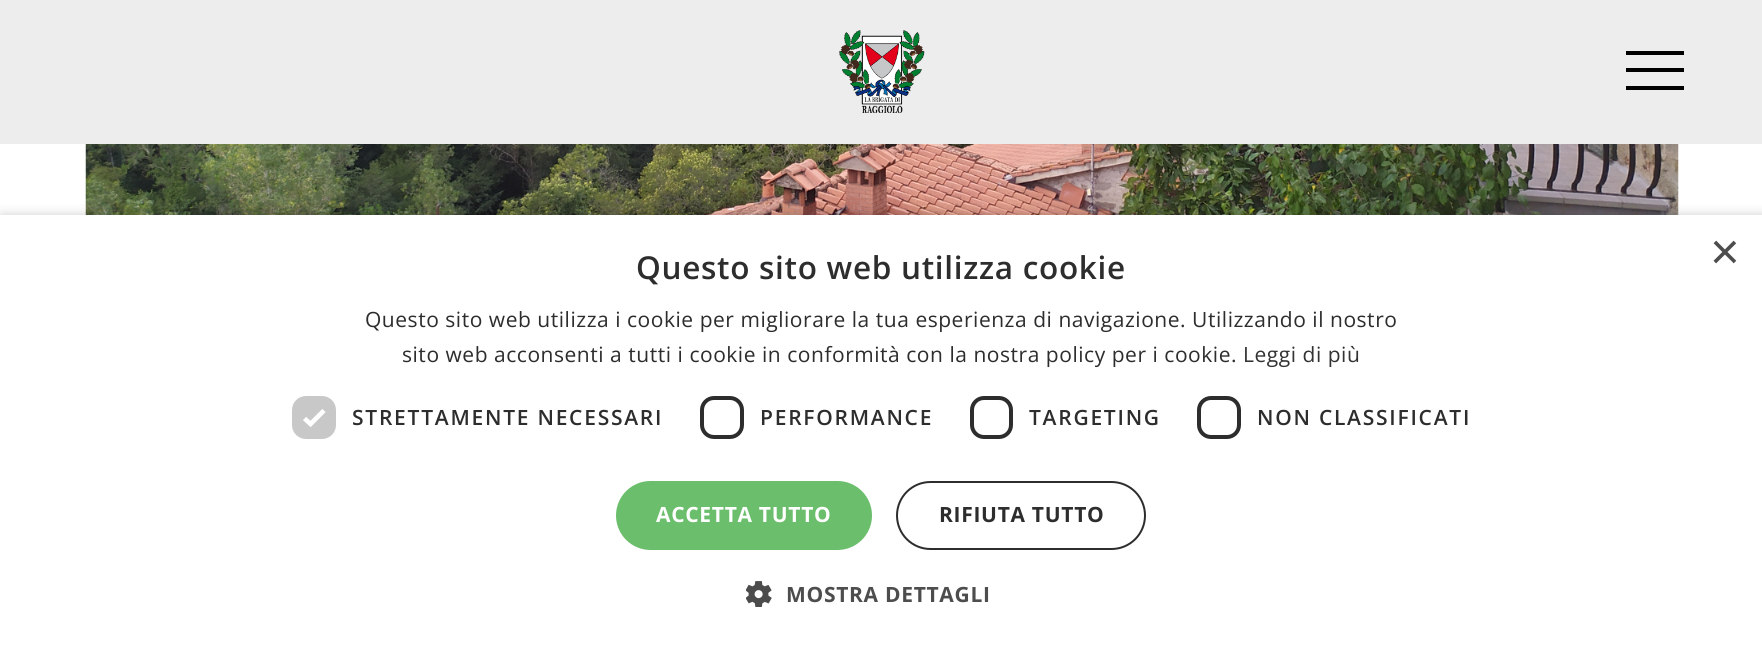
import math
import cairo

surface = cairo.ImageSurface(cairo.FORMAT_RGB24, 1762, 651)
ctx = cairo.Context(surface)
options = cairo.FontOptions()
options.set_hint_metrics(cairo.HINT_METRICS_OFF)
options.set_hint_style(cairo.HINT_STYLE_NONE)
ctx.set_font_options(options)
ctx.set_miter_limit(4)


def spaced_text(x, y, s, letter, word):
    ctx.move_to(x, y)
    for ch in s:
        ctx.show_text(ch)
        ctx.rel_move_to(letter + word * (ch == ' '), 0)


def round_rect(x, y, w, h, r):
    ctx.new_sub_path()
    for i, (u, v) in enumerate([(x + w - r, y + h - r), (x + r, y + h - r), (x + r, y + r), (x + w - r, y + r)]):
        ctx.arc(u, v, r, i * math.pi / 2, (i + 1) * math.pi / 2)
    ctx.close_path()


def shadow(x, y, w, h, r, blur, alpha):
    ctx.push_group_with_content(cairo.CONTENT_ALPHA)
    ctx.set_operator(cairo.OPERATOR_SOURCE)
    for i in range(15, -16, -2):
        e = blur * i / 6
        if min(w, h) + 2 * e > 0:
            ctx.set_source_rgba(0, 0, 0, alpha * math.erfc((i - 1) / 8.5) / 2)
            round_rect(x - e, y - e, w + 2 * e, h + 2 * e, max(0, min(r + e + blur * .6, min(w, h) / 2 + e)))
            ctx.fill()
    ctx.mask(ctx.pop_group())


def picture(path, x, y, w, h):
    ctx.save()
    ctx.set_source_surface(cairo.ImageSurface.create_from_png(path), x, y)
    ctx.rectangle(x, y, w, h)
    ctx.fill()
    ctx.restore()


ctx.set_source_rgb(1, 1, 1)
ctx.paint()
ctx.set_source_rgb(0.929, 0.929, 0.929)
ctx.rectangle(0, 0, 1762, 144)
ctx.fill()
picture("img1.png", 839, 30, 86, 83)
ctx.set_source_rgb(0, 0, 0)
ctx.rectangle(1626, 51, 58, 4)
ctx.fill()
ctx.rectangle(1626, 68, 58, 4)
ctx.fill()
ctx.rectangle(1626, 86, 58, 4)
ctx.fill()
picture("img2.png", 85, 144, 1594, 71)
ctx.set_source_rgb(0, 0, 0)
shadow(2, 219, 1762, 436, 0, 7, 0.35)
ctx.set_source_rgb(1, 1, 1)
ctx.rectangle(0, 215, 1762, 436)
ctx.fill()
ctx.select_font_face("Liberation Sans")
ctx.set_font_size(51)
ctx.set_source_rgb(0.302, 0.302, 0.302)
ctx.move_to(1710, 269)
ctx.show_text("×")
ctx.select_font_face("Open Sans SemiBold")
ctx.set_font_size(31.5)
ctx.set_source_rgb(0.176, 0.176, 0.176)
spaced_text(636, 279, "Questo sito web utilizza cookie", 0.7, 0)
ctx.select_font_face("Open Sans")
ctx.set_font_size(21)
spaced_text(365, 327, "Questo sito web utilizza i cookie per migliorare la tua esperienza di navigazione. Utilizzando il nostro", 0.53, 0)
spaced_text(402, 362, "sito web acconsenti a tutti i cookie in conformità con la nostra policy per i cookie.", 0.53, 0)
ctx.set_source_rgb(0.2, 0.2, 0.2)
spaced_text(1243, 362, "Leggi di più", 0.53, 0)
ctx.set_source_rgb(0.784, 0.784, 0.784)
round_rect(292, 396, 44, 43, 14)
ctx.fill()
ctx.new_path()
ctx.move_to(304.5, 418.5)
ctx.line_to(310.5, 424)
ctx.line_to(324, 410.5)
ctx.set_source_rgb(1, 1, 1)
ctx.set_line_width(4.6)
ctx.stroke()
ctx.select_font_face("Open Sans SemiBold")
ctx.set_source_rgb(0.176, 0.176, 0.176)
spaced_text(352, 425, "STRETTAMENTE NECESSARI", 1.75, 0)
round_rect(702, 398, 40, 39, 12)
ctx.set_line_width(4)
ctx.stroke()
spaced_text(760, 425, "PERFORMANCE", 1.75, 0)
round_rect(972, 398, 39, 39, 12)
ctx.stroke()
spaced_text(1029, 425, "TARGETING", 1.75, 0)
round_rect(1199, 398, 40, 39, 12)
ctx.stroke()
spaced_text(1257, 425, "NON CLASSIFICATI", 1.75, 0)
ctx.set_source_rgb(0.42, 0.745, 0.42)
round_rect(616, 481, 256, 69, 34.5)
ctx.fill()
ctx.select_font_face("Open Sans", cairo.FONT_SLANT_NORMAL, cairo.FONT_WEIGHT_BOLD)
ctx.set_source_rgb(1, 1, 1)
spaced_text(656, 522, "ACCETTA TUTTO", 0.7, 0)
round_rect(897, 482, 248, 67, 33.5)
ctx.set_source_rgb(0.176, 0.176, 0.176)
ctx.set_line_width(2)
ctx.stroke()
spaced_text(939, 522, "RIFIUTA TUTTO", 0.7, 0)
picture("img3.png", 746, 581, 26, 26)
ctx.set_source_rgb(0.302, 0.302, 0.302)
spaced_text(786, 602, "MOSTRA DETTAGLI", 0.7, 0)
surface.write_to_png("page.png")
